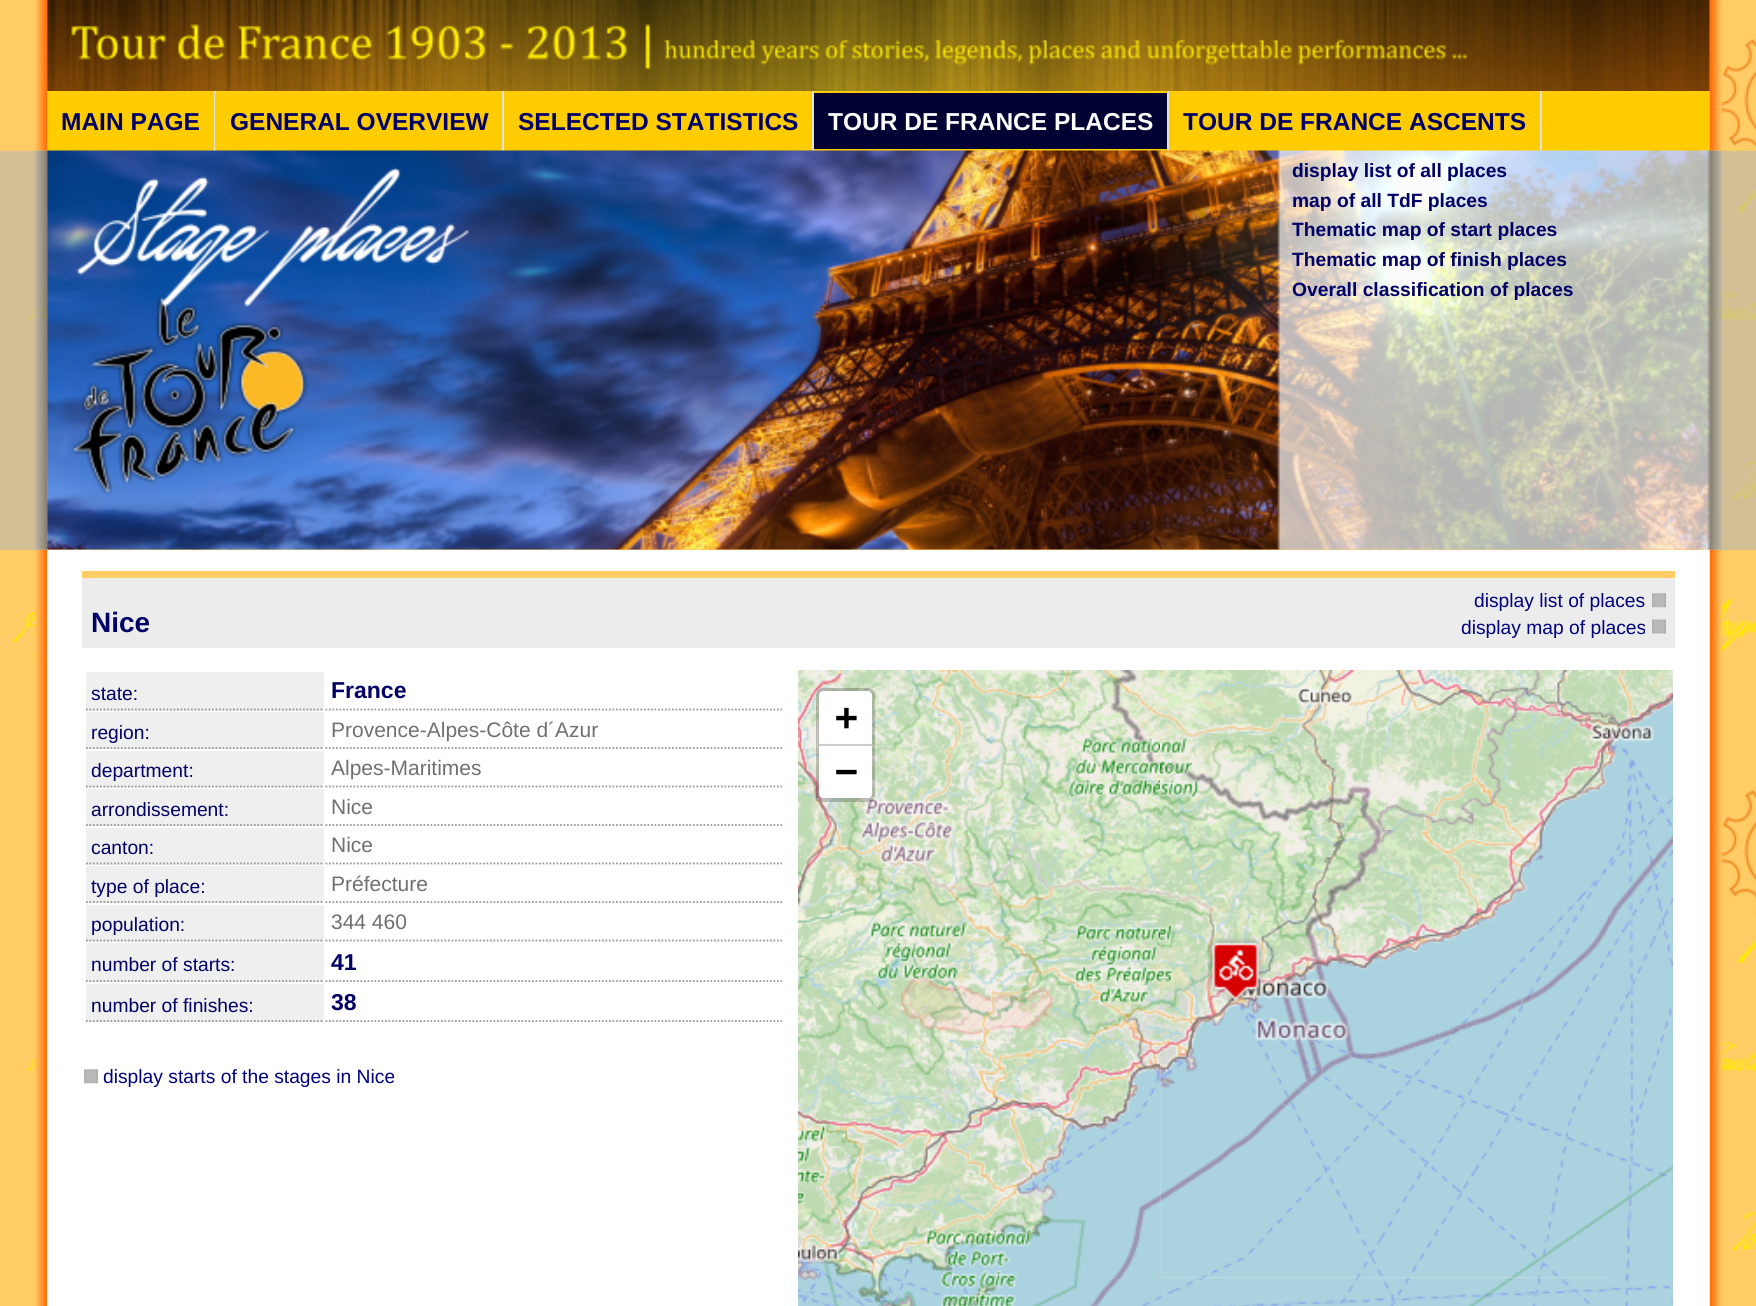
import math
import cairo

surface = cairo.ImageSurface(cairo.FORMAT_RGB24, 1756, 1306)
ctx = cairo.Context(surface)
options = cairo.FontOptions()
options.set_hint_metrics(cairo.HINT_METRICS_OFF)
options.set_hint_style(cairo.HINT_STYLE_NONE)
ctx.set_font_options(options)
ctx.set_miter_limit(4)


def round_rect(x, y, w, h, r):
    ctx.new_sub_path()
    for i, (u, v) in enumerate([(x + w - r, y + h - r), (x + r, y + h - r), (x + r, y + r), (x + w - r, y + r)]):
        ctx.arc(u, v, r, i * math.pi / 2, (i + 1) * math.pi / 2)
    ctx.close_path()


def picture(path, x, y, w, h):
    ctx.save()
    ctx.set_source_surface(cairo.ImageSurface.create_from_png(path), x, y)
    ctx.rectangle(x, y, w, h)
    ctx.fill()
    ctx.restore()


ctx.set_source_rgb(1, 0.8, 0.4)
ctx.paint()
picture("img1.png", 12, 22, 1744, 1284)
picture("img2.png", 35, 0, 13, 91)
picture("img3.png", 47, 0, 1663, 91)
picture("img4.png", 1709, 0, 13, 91)
picture("img5.png", 35, 91, 12, 60)
ctx.set_source_rgb(1, 0.8, 0)
ctx.rectangle(47, 91, 1663, 60)
ctx.fill()
ctx.set_source_rgb(0.878, 0.878, 0.878)
ctx.rectangle(214, 91, 2, 60)
ctx.fill()
ctx.select_font_face("Liberation Sans", cairo.FONT_SLANT_NORMAL, cairo.FONT_WEIGHT_BOLD)
ctx.set_font_size(24.5)
ctx.set_source_rgb(0, 0, 0.4)
ctx.move_to(61, 130)
ctx.show_text("MAIN PAGE")
ctx.set_source_rgb(0.878, 0.878, 0.878)
ctx.rectangle(502, 91, 2, 60)
ctx.fill()
ctx.set_source_rgb(1, 0.8, 0)
ctx.rectangle(215, 93, 1, 56)
ctx.fill()
ctx.set_source_rgb(0, 0, 0.4)
ctx.move_to(230, 130)
ctx.show_text("GENERAL OVERVIEW")
ctx.set_source_rgb(0.878, 0.878, 0.878)
ctx.rectangle(812, 91, 2, 60)
ctx.fill()
ctx.set_source_rgb(0, 0, 0.4)
ctx.move_to(518, 130)
ctx.show_text("SELECTED STATISTICS")
ctx.set_source_rgb(0.878, 0.878, 0.878)
ctx.rectangle(1167, 91, 2, 60)
ctx.fill()
ctx.set_source_rgb(0, 0, 0.2)
ctx.rectangle(814, 93, 353, 56)
ctx.fill()
ctx.set_source_rgb(1, 1, 1)
ctx.move_to(828, 130)
ctx.show_text("TOUR DE FRANCE PLACES")
ctx.set_source_rgb(0.878, 0.878, 0.878)
ctx.rectangle(1540, 91, 2, 60)
ctx.fill()
ctx.set_source_rgb(0, 0, 0.4)
ctx.move_to(1183, 130)
ctx.show_text("TOUR DE FRANCE ASCENTS")
picture("img6.png", 1709, 91, 13, 60)
picture("img8.png", 47, 150, 1663, 400)
picture("img10.png", 35, 549, 13, 757)
ctx.set_source_rgba(0.71, 0.71, 0.71, 0.6)
ctx.rectangle(0, 151, 47, 399)
ctx.fill()
picture("img7.png", 35, 150, 13, 400)
ctx.set_font_size(19.25)
ctx.set_source_rgb(0, 0, 0.4)
ctx.move_to(1292, 177)
ctx.show_text("display list of all places")
ctx.move_to(1292, 207)
ctx.show_text("map of all TdF places")
ctx.move_to(1292, 236)
ctx.show_text("Thematic map of start places")
ctx.move_to(1292, 266)
ctx.show_text("Thematic map of finish places")
ctx.move_to(1292, 296)
ctx.show_text("Overall classification of places")
ctx.set_source_rgb(1, 1, 1)
ctx.rectangle(47, 550, 1663, 756)
ctx.fill()
picture("img24.png", 1709, 549, 13, 757)
ctx.set_source_rgba(0.71, 0.71, 0.71, 0.6)
ctx.rectangle(1710, 151, 46, 399)
ctx.fill()
picture("img9.png", 1709, 150, 13, 400)
ctx.set_source_rgb(0.925, 0.925, 0.925)
ctx.rectangle(82, 578, 1593, 70)
ctx.fill()
ctx.set_source_rgb(1, 0.8, 0.4)
ctx.rectangle(82, 571, 1593, 7)
ctx.fill()
ctx.set_font_size(28)
ctx.set_source_rgb(0, 0, 0.4)
ctx.move_to(91, 632)
ctx.show_text("Nice")
ctx.select_font_face("Liberation Sans")
ctx.set_font_size(19.25)
ctx.set_source_rgb(0, 0, 0.502)
ctx.move_to(1474, 607)
ctx.show_text("display list of places")
picture("img11.png", 1652, 593, 14, 15)
ctx.move_to(1461, 634)
ctx.show_text("display map of places")
picture("img12.png", 1652, 619, 14, 15)
ctx.set_source_rgb(0.937, 0.937, 0.937)
ctx.rectangle(86, 672, 238, 39)
ctx.fill()
ctx.new_path()
ctx.move_to(86, 709.5)
ctx.line_to(324, 709.5)
ctx.set_source_rgb(0.6, 0.6, 0.6)
ctx.set_line_width(1.8)
ctx.set_dash([1.75, 1.75])
ctx.stroke()
ctx.set_source_rgb(0, 0, 0.4)
ctx.move_to(91, 700)
ctx.show_text("state:")
ctx.new_path()
ctx.move_to(325.5, 709.5)
ctx.line_to(782, 709.5)
ctx.set_source_rgb(0.6, 0.6, 0.6)
ctx.stroke()
ctx.select_font_face("Liberation Sans", cairo.FONT_SLANT_NORMAL, cairo.FONT_WEIGHT_BOLD)
ctx.set_font_size(23)
ctx.set_source_rgb(0, 0, 0.4)
ctx.move_to(331, 698)
ctx.show_text("France")
ctx.set_source_rgb(0.937, 0.937, 0.937)
ctx.rectangle(86, 712, 238, 37)
ctx.fill()
ctx.new_path()
ctx.move_to(86, 748)
ctx.line_to(324, 748)
ctx.set_source_rgb(0.6, 0.6, 0.6)
ctx.stroke()
ctx.select_font_face("Liberation Sans")
ctx.set_font_size(19.25)
ctx.set_source_rgb(0, 0, 0.4)
ctx.move_to(91, 739)
ctx.show_text("region:")
ctx.new_path()
ctx.move_to(325.5, 748)
ctx.line_to(782, 748)
ctx.set_source_rgb(0.6, 0.6, 0.6)
ctx.stroke()
ctx.set_font_size(21)
ctx.set_source_rgb(0.439, 0.439, 0.439)
ctx.move_to(331, 737)
ctx.show_text("Provence-Alpes-Côte d´Azur")
ctx.set_source_rgb(0.937, 0.937, 0.937)
ctx.rectangle(86, 751, 238, 37)
ctx.fill()
ctx.new_path()
ctx.move_to(86, 786.5)
ctx.line_to(324, 786.5)
ctx.set_source_rgb(0.6, 0.6, 0.6)
ctx.stroke()
ctx.set_font_size(19.25)
ctx.set_source_rgb(0, 0, 0.4)
ctx.move_to(91, 777)
ctx.show_text("department:")
ctx.new_path()
ctx.move_to(325.5, 786.5)
ctx.line_to(782, 786.5)
ctx.set_source_rgb(0.6, 0.6, 0.6)
ctx.stroke()
ctx.set_font_size(21)
ctx.set_source_rgb(0.439, 0.439, 0.439)
ctx.move_to(331, 775)
ctx.show_text("Alpes-Maritimes")
ctx.set_source_rgb(0.937, 0.937, 0.937)
ctx.rectangle(86, 789, 238, 37)
ctx.fill()
ctx.new_path()
ctx.move_to(86, 825)
ctx.line_to(324, 825)
ctx.set_source_rgb(0.6, 0.6, 0.6)
ctx.stroke()
ctx.set_font_size(19.25)
ctx.set_source_rgb(0, 0, 0.4)
ctx.move_to(91, 816)
ctx.show_text("arrondissement:")
ctx.new_path()
ctx.move_to(325.5, 825)
ctx.line_to(782, 825)
ctx.set_source_rgb(0.6, 0.6, 0.6)
ctx.stroke()
ctx.set_font_size(21)
ctx.set_source_rgb(0.439, 0.439, 0.439)
ctx.move_to(331, 814)
ctx.show_text("Nice")
ctx.set_source_rgb(0.937, 0.937, 0.937)
ctx.rectangle(86, 828, 238, 37)
ctx.fill()
ctx.new_path()
ctx.move_to(86, 863.5)
ctx.line_to(324, 863.5)
ctx.set_source_rgb(0.6, 0.6, 0.6)
ctx.stroke()
ctx.set_font_size(19.25)
ctx.set_source_rgb(0, 0, 0.4)
ctx.move_to(91, 854)
ctx.show_text("canton:")
ctx.new_path()
ctx.move_to(325.5, 863.5)
ctx.line_to(782, 863.5)
ctx.set_source_rgb(0.6, 0.6, 0.6)
ctx.stroke()
ctx.set_font_size(21)
ctx.set_source_rgb(0.439, 0.439, 0.439)
ctx.move_to(331, 852)
ctx.show_text("Nice")
ctx.set_source_rgb(0.937, 0.937, 0.937)
ctx.rectangle(86, 866, 238, 37)
ctx.fill()
ctx.new_path()
ctx.move_to(86, 902)
ctx.line_to(324, 902)
ctx.set_source_rgb(0.6, 0.6, 0.6)
ctx.stroke()
ctx.set_font_size(19.25)
ctx.set_source_rgb(0, 0, 0.4)
ctx.move_to(91, 893)
ctx.show_text("type of place:")
ctx.new_path()
ctx.move_to(325.5, 902)
ctx.line_to(782, 902)
ctx.set_source_rgb(0.6, 0.6, 0.6)
ctx.stroke()
ctx.set_font_size(21)
ctx.set_source_rgb(0.439, 0.439, 0.439)
ctx.move_to(331, 891)
ctx.show_text("Préfecture")
ctx.set_source_rgb(0.937, 0.937, 0.937)
ctx.rectangle(86, 905, 238, 37)
ctx.fill()
ctx.new_path()
ctx.move_to(86, 940.5)
ctx.line_to(324, 940.5)
ctx.set_source_rgb(0.6, 0.6, 0.6)
ctx.stroke()
ctx.set_font_size(19.25)
ctx.set_source_rgb(0, 0, 0.4)
ctx.move_to(91, 931)
ctx.show_text("population:")
ctx.new_path()
ctx.move_to(325.5, 940.5)
ctx.line_to(782, 940.5)
ctx.set_source_rgb(0.6, 0.6, 0.6)
ctx.stroke()
ctx.set_font_size(21)
ctx.set_source_rgb(0.439, 0.439, 0.439)
ctx.move_to(331, 929)
ctx.show_text("344 460")
ctx.set_source_rgb(0.937, 0.937, 0.937)
ctx.rectangle(86, 943, 238, 39)
ctx.fill()
ctx.new_path()
ctx.move_to(86, 981)
ctx.line_to(324, 981)
ctx.set_source_rgb(0.6, 0.6, 0.6)
ctx.stroke()
ctx.set_font_size(19.25)
ctx.set_source_rgb(0, 0, 0.4)
ctx.move_to(91, 971)
ctx.show_text("number of starts:")
ctx.new_path()
ctx.move_to(325.5, 981)
ctx.line_to(782, 981)
ctx.set_source_rgb(0.6, 0.6, 0.6)
ctx.stroke()
ctx.select_font_face("Liberation Sans", cairo.FONT_SLANT_NORMAL, cairo.FONT_WEIGHT_BOLD)
ctx.set_font_size(23)
ctx.set_source_rgb(0, 0, 0.4)
ctx.move_to(331, 970)
ctx.show_text("41")
ctx.set_source_rgb(0.937, 0.937, 0.937)
ctx.rectangle(86, 984, 238, 38)
ctx.fill()
ctx.new_path()
ctx.move_to(86, 1021)
ctx.line_to(324, 1021)
ctx.set_source_rgb(0.6, 0.6, 0.6)
ctx.stroke()
ctx.select_font_face("Liberation Sans")
ctx.set_font_size(19.25)
ctx.set_source_rgb(0, 0, 0.4)
ctx.move_to(91, 1012)
ctx.show_text("number of finishes:")
ctx.new_path()
ctx.move_to(325.5, 1021)
ctx.line_to(782, 1021)
ctx.set_source_rgb(0.6, 0.6, 0.6)
ctx.stroke()
ctx.select_font_face("Liberation Sans", cairo.FONT_SLANT_NORMAL, cairo.FONT_WEIGHT_BOLD)
ctx.set_font_size(23)
ctx.set_source_rgb(0, 0, 0.4)
ctx.move_to(331, 1010)
ctx.show_text("38")
picture("img13.png", 84, 1069, 14, 15)
ctx.select_font_face("Liberation Sans")
ctx.set_font_size(19.25)
ctx.set_source_rgb(0, 0, 0.502)
ctx.move_to(103, 1083)
ctx.show_text("display starts of the stages in Nice")
ctx.set_source_rgb(0.867, 0.867, 0.867)
ctx.rectangle(1160, 830, 448, 448)
ctx.fill()
picture("img14.png", 798, 670, 362, 160)
picture("img15.png", 1160, 670, 448, 160)
picture("img16.png", 1608, 670, 65, 160)
picture("img17.png", 798, 830, 362, 448)
picture("img18.png", 1160, 830, 448, 448)
picture("img19.png", 1608, 830, 65, 448)
picture("img20.png", 798, 1278, 362, 28)
picture("img21.png", 1160, 1278, 448, 28)
picture("img22.png", 1608, 1278, 65, 28)
picture("img23.png", 1207, 938, 57, 65)
round_rect(818, 690, 55, 110, 5)
ctx.set_source_rgba(0, 0, 0, 0.2)
ctx.set_line_width(4)
ctx.set_dash([])
ctx.stroke()
ctx.set_source_rgb(1, 1, 1)
ctx.new_path()
ctx.move_to(823, 691)
ctx.line_to(868, 691)
ctx.curve_to(870, 691, 872, 693, 872, 695)
ctx.line_to(872, 746)
ctx.line_to(819, 746)
ctx.line_to(819, 695)
ctx.curve_to(819, 693, 821, 691, 823, 691)
ctx.close_path()
ctx.fill()
ctx.set_source_rgb(0.8, 0.8, 0.8)
ctx.rectangle(819, 744, 53, 2)
ctx.fill()
ctx.select_font_face("DejaVu Sans Mono", cairo.FONT_SLANT_NORMAL, cairo.FONT_WEIGHT_BOLD)
ctx.set_font_size(38)
ctx.set_source_rgb(0, 0, 0)
ctx.move_to(835, 730)
ctx.show_text("+")
ctx.set_source_rgb(1, 1, 1)
ctx.new_path()
ctx.move_to(819, 746)
ctx.line_to(872, 746)
ctx.line_to(872, 794)
ctx.curve_to(872, 796, 870, 798, 868, 798)
ctx.line_to(823, 798)
ctx.curve_to(821, 798, 819, 796, 819, 794)
ctx.close_path()
ctx.fill()
ctx.set_source_rgb(0, 0, 0)
ctx.move_to(835, 784)
ctx.show_text("−")
surface.write_to_png("page.png")
